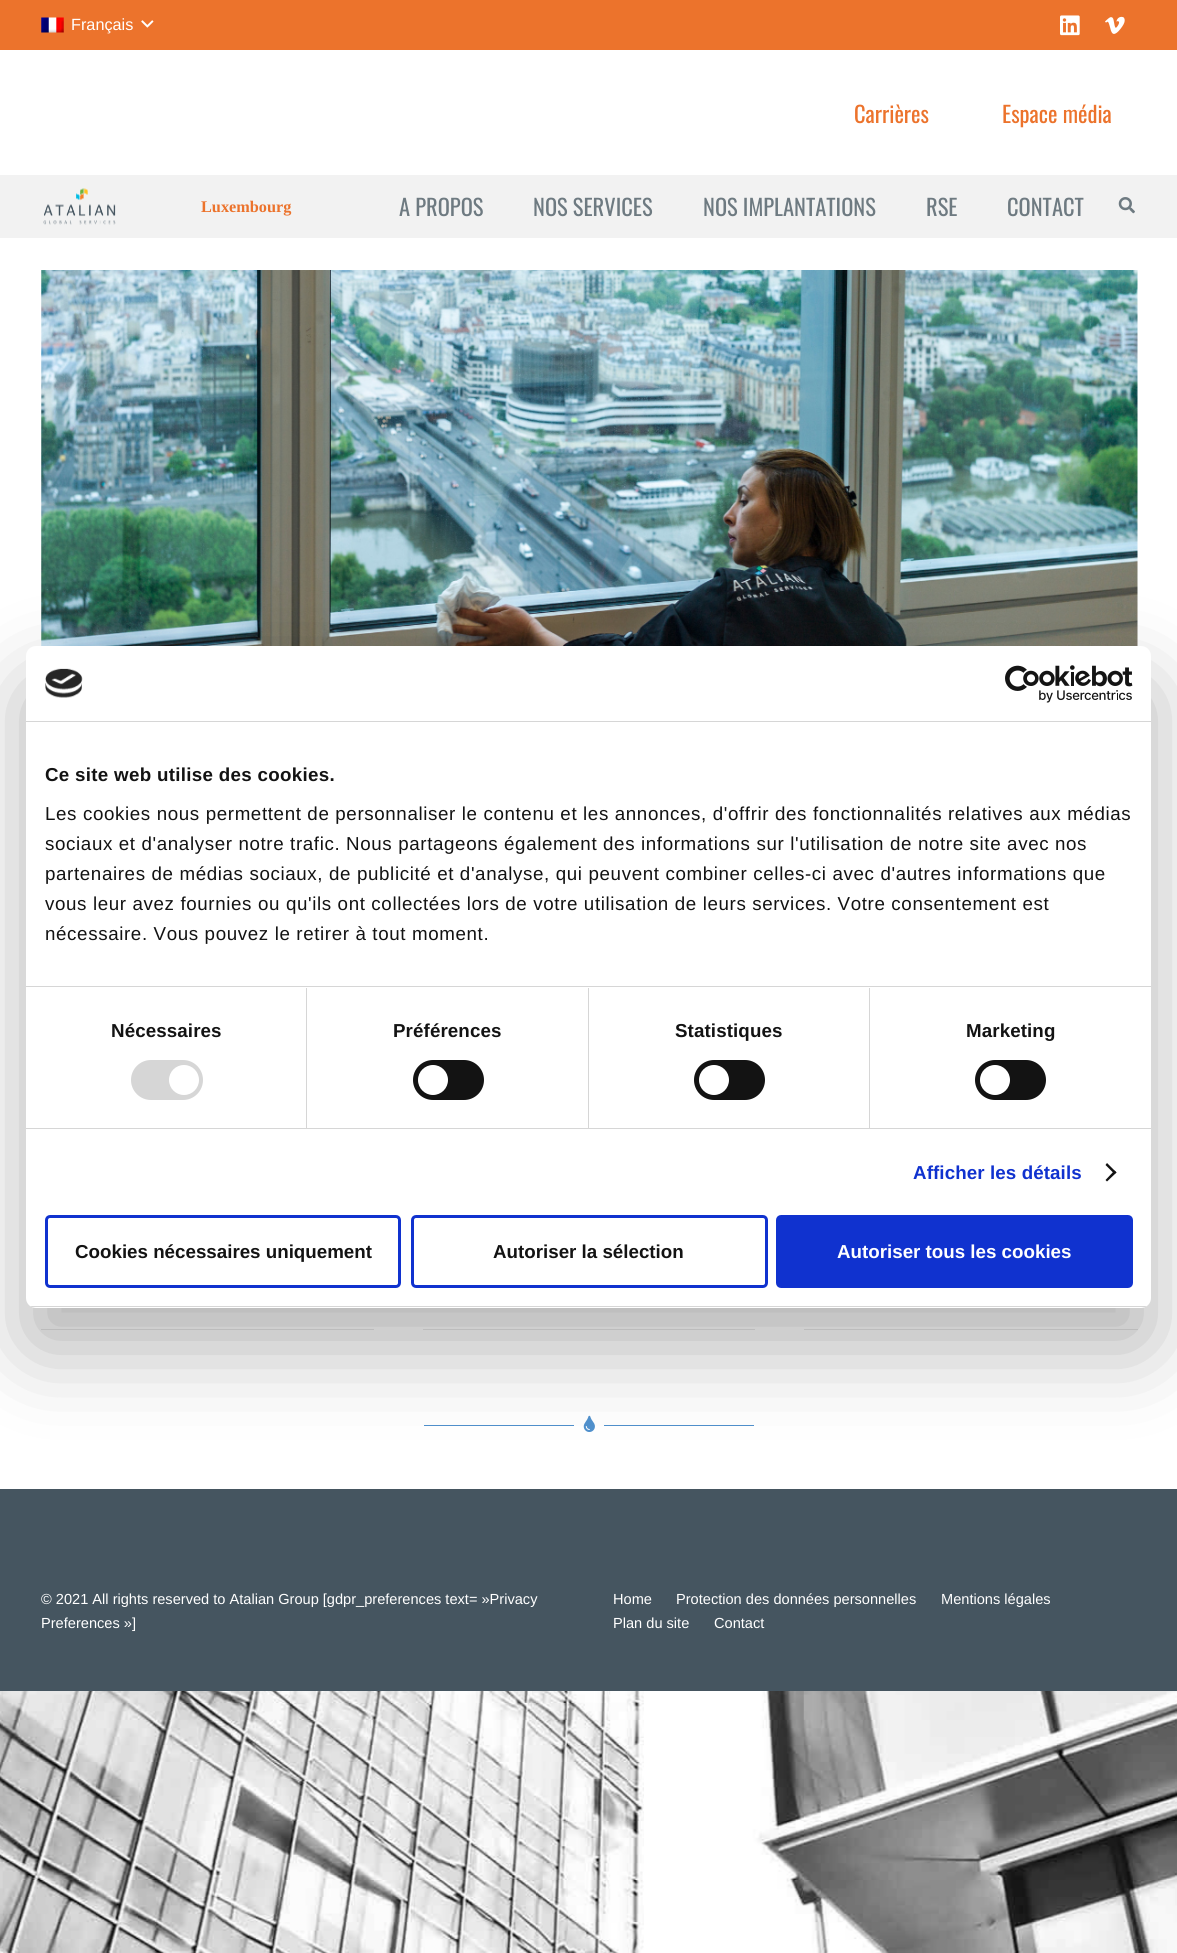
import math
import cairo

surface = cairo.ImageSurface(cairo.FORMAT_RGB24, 1177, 1953)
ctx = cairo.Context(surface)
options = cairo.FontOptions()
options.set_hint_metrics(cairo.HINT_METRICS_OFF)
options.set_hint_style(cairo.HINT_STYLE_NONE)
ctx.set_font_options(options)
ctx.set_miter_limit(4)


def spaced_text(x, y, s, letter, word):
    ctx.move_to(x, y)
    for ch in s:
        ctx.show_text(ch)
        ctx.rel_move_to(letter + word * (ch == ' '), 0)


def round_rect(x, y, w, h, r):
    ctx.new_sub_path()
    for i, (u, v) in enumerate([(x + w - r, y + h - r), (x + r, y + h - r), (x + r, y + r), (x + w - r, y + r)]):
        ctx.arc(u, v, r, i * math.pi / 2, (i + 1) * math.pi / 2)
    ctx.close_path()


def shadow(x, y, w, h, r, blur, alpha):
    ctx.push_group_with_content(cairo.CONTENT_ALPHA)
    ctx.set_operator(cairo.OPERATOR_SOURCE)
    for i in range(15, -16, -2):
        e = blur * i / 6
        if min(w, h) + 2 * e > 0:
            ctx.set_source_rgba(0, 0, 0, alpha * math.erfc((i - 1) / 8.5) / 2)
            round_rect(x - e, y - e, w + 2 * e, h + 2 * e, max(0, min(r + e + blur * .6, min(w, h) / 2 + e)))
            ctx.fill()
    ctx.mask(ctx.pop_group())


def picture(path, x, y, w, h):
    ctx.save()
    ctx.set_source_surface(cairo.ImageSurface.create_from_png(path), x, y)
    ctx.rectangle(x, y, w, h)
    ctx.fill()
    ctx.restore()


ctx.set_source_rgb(1, 1, 1)
ctx.paint()
picture("img1.png", 0, 1691, 1177, 262)
ctx.set_source_rgb(0.925, 0.451, 0.173)
ctx.rectangle(0, 0, 1177, 50)
ctx.fill()
picture("img2.png", 41, 17, 23, 16)
ctx.select_font_face("Liberation Sans")
ctx.set_font_size(16.25)
ctx.set_source_rgb(1, 1, 1)
ctx.move_to(71, 30)
ctx.show_text("Français")
picture("img3.png", 141, 20, 13, 8)
picture("img4.png", 1060, 15, 20, 21)
picture("img5.png", 1105, 16, 20, 18)
ctx.select_font_face("Oswald")
ctx.set_font_size(22.5)
ctx.set_source_rgb(0.925, 0.451, 0.173)
ctx.move_to(854, 123)
ctx.show_text("Carrières")
ctx.move_to(1002, 123)
ctx.show_text("Espace média")
ctx.set_source_rgb(0.949, 0.949, 0.949)
ctx.rectangle(0, 175, 1177, 63)
ctx.fill()
picture("img6.png", 43, 188, 73, 37)
ctx.select_font_face("Liberation Serif", cairo.FONT_SLANT_NORMAL, cairo.FONT_WEIGHT_BOLD)
ctx.set_font_size(16.25)
ctx.set_source_rgb(0.925, 0.451, 0.173)
ctx.move_to(201, 212)
ctx.show_text("Luxembourg")
ctx.select_font_face("Oswald")
ctx.set_font_size(22.5)
ctx.set_source_rgb(0.431, 0.478, 0.506)
ctx.move_to(399, 216)
ctx.show_text("A PROPOS")
ctx.move_to(533, 216)
ctx.show_text("NOS SERVICES")
ctx.move_to(703, 216)
ctx.show_text("NOS IMPLANTATIONS")
ctx.move_to(926, 216)
ctx.show_text("RSE")
ctx.move_to(1007, 216)
ctx.show_text("CONTACT")
picture("img7.png", 1118, 197, 17, 17)
picture("img8.png", 41, 270, 1097, 376)
ctx.set_source_rgb(0.91, 0.91, 0.91)
ctx.rectangle(41, 1329, 333, 1)
ctx.fill()
ctx.rectangle(423, 1329, 332, 1)
ctx.fill()
ctx.rectangle(804, 1329, 334, 1)
ctx.fill()
ctx.set_source_rgb(0.314, 0.569, 0.804)
ctx.rectangle(424, 1425, 150, 1)
ctx.fill()
picture("img9.png", 583, 1415, 12, 17)
ctx.rectangle(604, 1425, 150, 1)
ctx.fill()
ctx.set_source_rgb(0, 0, 0)
shadow(26, 686, 1125, 662, 10, 42.5, 0.3)
ctx.set_source_rgb(1, 1, 1)
round_rect(26, 646, 1125, 662, 10)
ctx.fill()
ctx.set_source_rgb(0.839, 0.839, 0.839)
ctx.rectangle(26, 721, 1125, 1)
ctx.fill()
picture("img10.png", 45, 668, 38, 30)
picture("img11.png", 1005, 665, 128, 38)
ctx.rectangle(26, 986, 1125, 1)
ctx.fill()
ctx.select_font_face("Liberation Sans", cairo.FONT_SLANT_NORMAL, cairo.FONT_WEIGHT_BOLD)
ctx.set_font_size(18.75)
ctx.set_source_rgb(0.078, 0.078, 0.078)
spaced_text(45, 781, "Ce site web utilise des cookies.", 0.3, 0)
ctx.select_font_face("Liberation Sans")
spaced_text(45, 820, "Les cookies nous permettent de personnaliser le contenu et les annonces, d'offrir des fonctionnalités relatives aux médias", 0.62, 0)
spaced_text(45, 850, "sociaux et d'analyser notre trafic. Nous partageons également des informations sur l'utilisation de notre site avec nos", 0.62, 0)
spaced_text(45, 880, "partenaires de médias sociaux, de publicité et d'analyse, qui peuvent combiner celles-ci avec d'autres informations que", 0.62, 0)
spaced_text(45, 910, "vous leur avez fournies ou qu'ils ont collectées lors de votre utilisation de leurs services. Votre consentement est", 0.62, 0)
spaced_text(45, 940, "nécessaire. Vous pouvez le retirer à tout moment.", 0.62, 0)
ctx.set_source_rgb(0.839, 0.839, 0.839)
ctx.rectangle(26, 1128, 1125, 1)
ctx.fill()
ctx.rectangle(306, 988, 1, 140)
ctx.fill()
ctx.select_font_face("Liberation Sans", cairo.FONT_SLANT_NORMAL, cairo.FONT_WEIGHT_BOLD)
ctx.set_source_rgb(0.078, 0.078, 0.078)
spaced_text(111, 1037, "Nécessaires", 0.1, 0)
ctx.set_source_rgb(0.839, 0.839, 0.839)
round_rect(131, 1060, 72, 40, 20)
ctx.fill()
ctx.set_source_rgb(1, 1, 1)
ctx.arc(184, 1080, 15, 0, 2 * math.pi)
ctx.fill()
ctx.set_source_rgb(0.839, 0.839, 0.839)
ctx.rectangle(588, 988, 1, 140)
ctx.fill()
ctx.set_source_rgb(0.078, 0.078, 0.078)
spaced_text(393, 1037, "Préférences", 0.1, 0)
round_rect(413, 1060, 71, 40, 20)
ctx.fill()
ctx.set_source_rgb(1, 1, 1)
ctx.arc(433, 1080, 15, 0, 2 * math.pi)
ctx.fill()
ctx.set_source_rgb(0.839, 0.839, 0.839)
ctx.rectangle(869, 988, 1, 140)
ctx.fill()
ctx.set_source_rgb(0.078, 0.078, 0.078)
spaced_text(675, 1037, "Statistiques", 0.1, 0)
round_rect(694, 1060, 71, 40, 20)
ctx.fill()
ctx.set_source_rgb(1, 1, 1)
ctx.arc(714, 1080, 15, 0, 2 * math.pi)
ctx.fill()
ctx.set_source_rgb(0.078, 0.078, 0.078)
spaced_text(966, 1037, "Marketing", 0.1, 0)
round_rect(975, 1060, 71, 40, 20)
ctx.fill()
ctx.set_source_rgb(1, 1, 1)
ctx.arc(995, 1080, 15, 0, 2 * math.pi)
ctx.fill()
ctx.set_source_rgb(0.063, 0.196, 0.812)
spaced_text(913, 1179, "Afficher les détails", 0.1, 0)
ctx.set_source_rgb(0.078, 0.078, 0.078)
ctx.new_path()
ctx.move_to(1107, 1163)
ctx.line_to(1116.5, 1172.5)
ctx.line_to(1114.5, 1174)
ctx.line_to(1105.5, 1165)
ctx.close_path()
ctx.fill()
ctx.new_path()
ctx.move_to(1114.5, 1170.5)
ctx.line_to(1116.5, 1172.5)
ctx.line_to(1107, 1181.5)
ctx.line_to(1105.5, 1180)
ctx.close_path()
ctx.fill()
ctx.save()
round_rect(26, 646, 1125, 662, 10)
ctx.clip()
ctx.set_source_rgb(0.839, 0.839, 0.839)
ctx.rectangle(26, 1306, 1125, 1)
ctx.fill()
ctx.restore()
round_rect(46.5, 1216.5, 353, 70, 3.5)
ctx.set_source_rgb(0.063, 0.196, 0.812)
ctx.set_line_width(3)
ctx.stroke()
ctx.set_source_rgb(0.078, 0.078, 0.078)
ctx.move_to(75, 1258)
ctx.show_text("Cookies nécessaires uniquement")
round_rect(412.5, 1216.5, 354, 70, 3.5)
ctx.set_source_rgb(0.063, 0.196, 0.812)
ctx.stroke()
ctx.set_source_rgb(0.078, 0.078, 0.078)
ctx.move_to(493, 1258)
ctx.show_text("Autoriser la sélection")
ctx.set_source_rgb(0.063, 0.196, 0.812)
round_rect(777.5, 1216.5, 354, 70, 3.5)
ctx.fill_preserve()
ctx.stroke()
ctx.set_source_rgb(1, 1, 1)
ctx.move_to(837, 1258)
ctx.show_text("Autoriser tous les cookies")
ctx.set_source_rgb(0.271, 0.333, 0.376)
ctx.rectangle(0, 1489, 1177, 202)
ctx.fill()
ctx.select_font_face("Liberation Sans")
ctx.set_font_size(14.6)
ctx.set_source_rgb(1, 1, 1)
ctx.move_to(41, 1604)
ctx.show_text("© 2021 All rights reserved to Atalian Group [gdpr_preferences text= »Privacy")
ctx.move_to(41, 1628)
ctx.show_text("Preferences »]")
ctx.move_to(613, 1604)
ctx.show_text("Home")
ctx.move_to(676, 1604)
ctx.show_text("Protection des données personnelles")
ctx.move_to(941, 1604)
ctx.show_text("Mentions légales")
ctx.move_to(613, 1628)
ctx.show_text("Plan du site")
ctx.move_to(714, 1628)
ctx.show_text("Contact")
surface.write_to_png("page.png")
